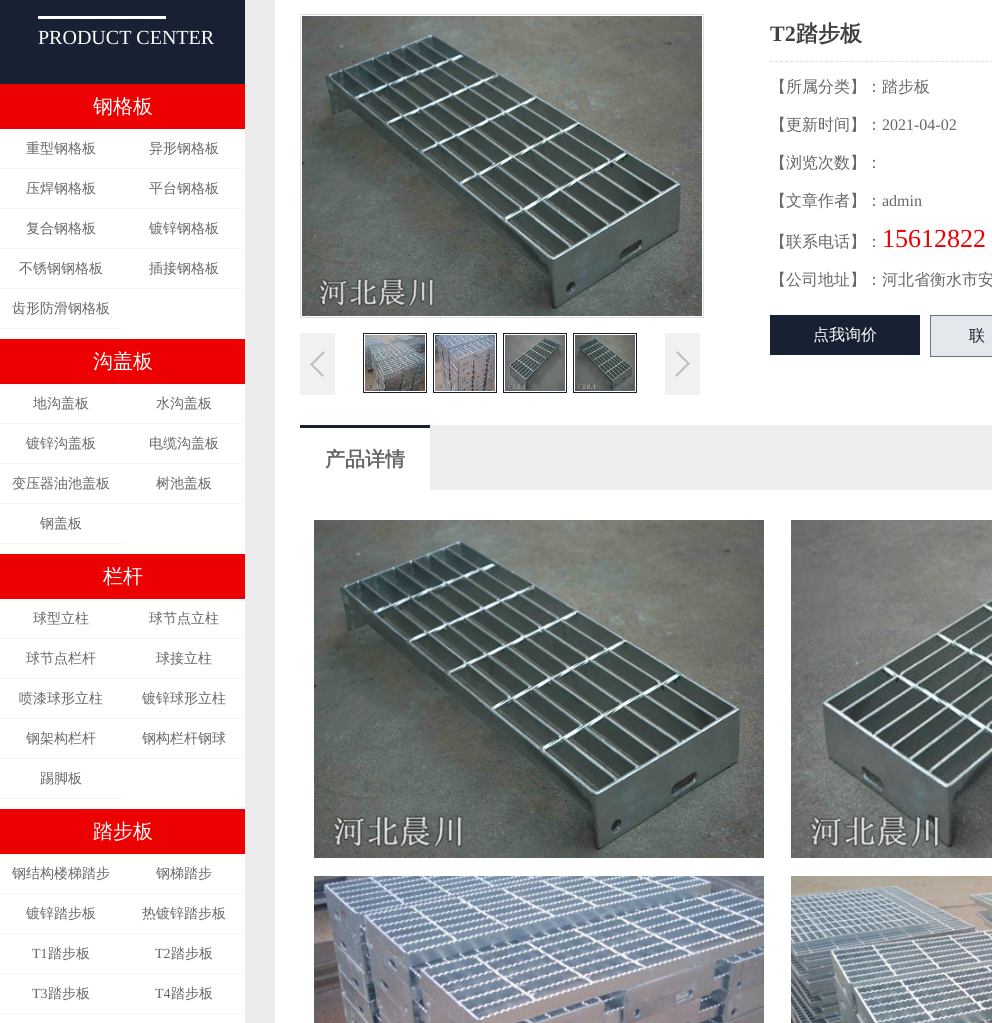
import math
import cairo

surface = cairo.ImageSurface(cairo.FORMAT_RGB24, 992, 1023)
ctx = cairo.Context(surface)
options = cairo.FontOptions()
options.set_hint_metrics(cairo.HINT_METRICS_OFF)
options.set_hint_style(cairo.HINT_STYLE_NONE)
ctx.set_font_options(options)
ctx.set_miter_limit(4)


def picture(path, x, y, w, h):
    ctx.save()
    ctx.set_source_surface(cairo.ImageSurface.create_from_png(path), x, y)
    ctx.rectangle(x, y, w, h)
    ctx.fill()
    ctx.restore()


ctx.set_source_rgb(0.925, 0.925, 0.925)
ctx.paint()
ctx.set_source_rgb(0.094, 0.129, 0.2)
ctx.rectangle(0, 0, 245, 84)
ctx.fill()
ctx.set_source_rgb(1, 1, 1)
ctx.rectangle(38, 16, 128, 3)
ctx.fill()
ctx.select_font_face("Liberation Serif")
ctx.set_font_size(20)
ctx.move_to(38, 44)
ctx.show_text("PRODUCT CENTER")
ctx.rectangle(0, 129, 245, 894)
ctx.fill()
ctx.set_source_rgb(0.922, 0, 0.004)
ctx.rectangle(0, 84, 245, 45)
ctx.fill()
ctx.select_font_face("WenQuanYi Zen Hei Medium")
ctx.set_source_rgb(1, 1, 1)
ctx.move_to(93, 113)
ctx.show_text("钢格板")
ctx.set_source_rgb(0.961, 0.961, 0.961)
ctx.rectangle(0, 168, 245, 1)
ctx.fill()
ctx.set_font_size(14)
ctx.set_source_rgb(0.4, 0.4, 0.4)
ctx.move_to(26, 153)
ctx.show_text("重型钢格板")
ctx.move_to(149, 153)
ctx.show_text("异形钢格板")
ctx.set_source_rgb(0.961, 0.961, 0.961)
ctx.rectangle(0, 208, 245, 1)
ctx.fill()
ctx.set_source_rgb(0.4, 0.4, 0.4)
ctx.move_to(26, 193)
ctx.show_text("压焊钢格板")
ctx.move_to(149, 193)
ctx.show_text("平台钢格板")
ctx.set_source_rgb(0.961, 0.961, 0.961)
ctx.rectangle(0, 248, 245, 1)
ctx.fill()
ctx.set_source_rgb(0.4, 0.4, 0.4)
ctx.move_to(26, 233)
ctx.show_text("复合钢格板")
ctx.move_to(149, 233)
ctx.show_text("镀锌钢格板")
ctx.set_source_rgb(0.961, 0.961, 0.961)
ctx.rectangle(0, 288, 245, 1)
ctx.fill()
ctx.set_source_rgb(0.4, 0.4, 0.4)
ctx.move_to(19, 273)
ctx.show_text("不锈钢钢格板")
ctx.move_to(149, 273)
ctx.show_text("插接钢格板")
ctx.set_source_rgb(0.961, 0.961, 0.961)
ctx.rectangle(0, 328, 123, 1)
ctx.fill()
ctx.set_source_rgb(0.4, 0.4, 0.4)
ctx.move_to(12, 313)
ctx.show_text("齿形防滑钢格板")
ctx.set_source_rgb(0.922, 0, 0.004)
ctx.rectangle(0, 339, 245, 45)
ctx.fill()
ctx.set_font_size(20)
ctx.set_source_rgb(1, 1, 1)
ctx.move_to(93, 368)
ctx.show_text("沟盖板")
ctx.set_source_rgb(0.961, 0.961, 0.961)
ctx.rectangle(0, 423, 245, 1)
ctx.fill()
ctx.set_font_size(14)
ctx.set_source_rgb(0.4, 0.4, 0.4)
ctx.move_to(33, 408)
ctx.show_text("地沟盖板")
ctx.move_to(156, 408)
ctx.show_text("水沟盖板")
ctx.set_source_rgb(0.961, 0.961, 0.961)
ctx.rectangle(0, 463, 245, 1)
ctx.fill()
ctx.set_source_rgb(0.4, 0.4, 0.4)
ctx.move_to(26, 448)
ctx.show_text("镀锌沟盖板")
ctx.move_to(149, 448)
ctx.show_text("电缆沟盖板")
ctx.set_source_rgb(0.961, 0.961, 0.961)
ctx.rectangle(0, 503, 245, 1)
ctx.fill()
ctx.set_source_rgb(0.4, 0.4, 0.4)
ctx.move_to(12, 488)
ctx.show_text("变压器油池盖板")
ctx.move_to(156, 488)
ctx.show_text("树池盖板")
ctx.set_source_rgb(0.961, 0.961, 0.961)
ctx.rectangle(0, 543, 123, 1)
ctx.fill()
ctx.set_source_rgb(0.4, 0.4, 0.4)
ctx.move_to(40, 528)
ctx.show_text("钢盖板")
ctx.set_source_rgb(0.922, 0, 0.004)
ctx.rectangle(0, 554, 245, 45)
ctx.fill()
ctx.set_font_size(20)
ctx.set_source_rgb(1, 1, 1)
ctx.move_to(103, 583)
ctx.show_text("栏杆")
ctx.set_source_rgb(0.961, 0.961, 0.961)
ctx.rectangle(0, 638, 245, 1)
ctx.fill()
ctx.set_font_size(14)
ctx.set_source_rgb(0.4, 0.4, 0.4)
ctx.move_to(33, 623)
ctx.show_text("球型立柱")
ctx.move_to(149, 623)
ctx.show_text("球节点立柱")
ctx.set_source_rgb(0.961, 0.961, 0.961)
ctx.rectangle(0, 678, 245, 1)
ctx.fill()
ctx.set_source_rgb(0.4, 0.4, 0.4)
ctx.move_to(26, 663)
ctx.show_text("球节点栏杆")
ctx.move_to(156, 663)
ctx.show_text("球接立柱")
ctx.set_source_rgb(0.961, 0.961, 0.961)
ctx.rectangle(0, 718, 245, 1)
ctx.fill()
ctx.set_source_rgb(0.4, 0.4, 0.4)
ctx.move_to(19, 703)
ctx.show_text("喷漆球形立柱")
ctx.move_to(142, 703)
ctx.show_text("镀锌球形立柱")
ctx.set_source_rgb(0.961, 0.961, 0.961)
ctx.rectangle(0, 758, 245, 1)
ctx.fill()
ctx.set_source_rgb(0.4, 0.4, 0.4)
ctx.move_to(26, 743)
ctx.show_text("钢架构栏杆")
ctx.move_to(142, 743)
ctx.show_text("钢构栏杆钢球")
ctx.set_source_rgb(0.961, 0.961, 0.961)
ctx.rectangle(0, 798, 123, 1)
ctx.fill()
ctx.set_source_rgb(0.4, 0.4, 0.4)
ctx.move_to(40, 783)
ctx.show_text("踢脚板")
ctx.set_source_rgb(0.922, 0, 0.004)
ctx.rectangle(0, 809, 245, 45)
ctx.fill()
ctx.set_font_size(20)
ctx.set_source_rgb(1, 1, 1)
ctx.move_to(93, 838)
ctx.show_text("踏步板")
ctx.set_source_rgb(0.961, 0.961, 0.961)
ctx.rectangle(0, 893, 245, 1)
ctx.fill()
ctx.set_font_size(14)
ctx.set_source_rgb(0.4, 0.4, 0.4)
ctx.move_to(12, 878)
ctx.show_text("钢结构楼梯踏步")
ctx.move_to(156, 878)
ctx.show_text("钢梯踏步")
ctx.set_source_rgb(0.961, 0.961, 0.961)
ctx.rectangle(0, 933, 245, 1)
ctx.fill()
ctx.set_source_rgb(0.4, 0.4, 0.4)
ctx.move_to(26, 918)
ctx.show_text("镀锌踏步板")
ctx.move_to(142, 918)
ctx.show_text("热镀锌踏步板")
ctx.set_source_rgb(0.961, 0.961, 0.961)
ctx.rectangle(0, 973, 245, 1)
ctx.fill()
ctx.select_font_face("Liberation Serif")
ctx.set_source_rgb(0.4, 0.4, 0.4)
ctx.move_to(32, 958)
ctx.show_text("T1")
ctx.select_font_face("WenQuanYi Zen Hei Medium")
ctx.move_to(48, 958)
ctx.show_text("踏步板")
ctx.select_font_face("Liberation Serif")
ctx.move_to(155, 958)
ctx.show_text("T2")
ctx.select_font_face("WenQuanYi Zen Hei Medium")
ctx.move_to(171, 958)
ctx.show_text("踏步板")
ctx.set_source_rgb(0.961, 0.961, 0.961)
ctx.rectangle(0, 1013, 245, 1)
ctx.fill()
ctx.select_font_face("Liberation Serif")
ctx.set_source_rgb(0.4, 0.4, 0.4)
ctx.move_to(32, 998)
ctx.show_text("T3")
ctx.select_font_face("WenQuanYi Zen Hei Medium")
ctx.move_to(48, 998)
ctx.show_text("踏步板")
ctx.select_font_face("Liberation Serif")
ctx.move_to(155, 998)
ctx.show_text("T4")
ctx.select_font_face("WenQuanYi Zen Hei Medium")
ctx.move_to(171, 998)
ctx.show_text("踏步板")
ctx.set_source_rgb(1, 1, 1)
ctx.rectangle(275, 0, 717, 1023)
ctx.fill()
ctx.rectangle(300.5, 14.5, 403, 303)
ctx.set_source_rgb(0.867, 0.867, 0.867)
ctx.set_line_width(1)
ctx.stroke()
picture("img1.png", 302, 16, 400, 300)
picture("img2.png", 300, 333, 35, 62)
ctx.rectangle(363.5, 333.5, 63, 59)
ctx.set_source_rgb(0.094, 0.129, 0.2)
ctx.stroke()
picture("img3.png", 365, 335, 60, 56)
ctx.rectangle(433.5, 333.5, 63, 59)
ctx.stroke()
picture("img4.png", 435, 335, 60, 56)
ctx.rectangle(503.5, 333.5, 63, 59)
ctx.stroke()
picture("img5.png", 505, 335, 60, 56)
ctx.rectangle(573.5, 333.5, 63, 59)
ctx.stroke()
picture("img6.png", 575, 335, 60, 56)
picture("img7.png", 665, 333, 35, 62)
ctx.new_path()
ctx.move_to(770, 61.5)
ctx.line_to(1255, 61.5)
ctx.set_source_rgb(0.863, 0.863, 0.863)
ctx.set_dash([3, 2.02])
ctx.stroke()
ctx.select_font_face("Liberation Serif", cairo.FONT_SLANT_NORMAL, cairo.FONT_WEIGHT_BOLD)
ctx.set_font_size(22)
ctx.set_source_rgb(0.255, 0.255, 0.255)
ctx.move_to(770, 41)
ctx.show_text("T2")
ctx.select_font_face("WenQuanYi Zen Hei", cairo.FONT_SLANT_NORMAL, cairo.FONT_WEIGHT_BOLD)
ctx.move_to(796, 41)
ctx.show_text("踏步板")
ctx.select_font_face("WenQuanYi Zen Hei Medium")
ctx.set_font_size(16)
ctx.set_source_rgb(0.4, 0.4, 0.4)
ctx.move_to(770, 92)
ctx.show_text("【所属分类】：踏步板")
ctx.move_to(770, 130)
ctx.show_text("【更新时间】：")
ctx.select_font_face("Liberation Serif")
ctx.move_to(882, 130)
ctx.show_text("2021-04-02")
ctx.select_font_face("WenQuanYi Zen Hei Medium")
ctx.move_to(770, 168)
ctx.show_text("【浏览次数】：")
ctx.move_to(770, 206)
ctx.show_text("【文章作者】：")
ctx.select_font_face("Liberation Serif")
ctx.move_to(882, 206)
ctx.show_text("admin")
ctx.select_font_face("WenQuanYi Zen Hei Medium")
ctx.move_to(770, 247)
ctx.show_text("【联系电话】：")
ctx.select_font_face("Liberation Serif")
ctx.set_font_size(26)
ctx.set_source_rgb(0.922, 0, 0.004)
ctx.move_to(882, 247)
ctx.show_text("15612822")
ctx.select_font_face("WenQuanYi Zen Hei Medium")
ctx.set_font_size(16)
ctx.set_source_rgb(0.4, 0.4, 0.4)
ctx.move_to(770, 285)
ctx.show_text("【公司地址】：河北省衡水市安")
ctx.set_source_rgb(0.094, 0.129, 0.2)
ctx.rectangle(770, 315, 150, 40)
ctx.fill()
ctx.set_source_rgb(1, 1, 1)
ctx.move_to(813, 340)
ctx.show_text("点我询价")
ctx.set_source_rgb(0.894, 0.906, 0.925)
ctx.rectangle(930.5, 315.5, 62, 41)
ctx.fill_preserve()
ctx.set_source_rgb(0.412, 0.455, 0.541)
ctx.set_dash([])
ctx.stroke()
ctx.set_source_rgb(0.094, 0.129, 0.2)
ctx.move_to(969, 341)
ctx.show_text("联")
ctx.set_source_rgb(0.933, 0.933, 0.933)
ctx.rectangle(430, 425, 562, 65)
ctx.fill()
ctx.set_source_rgb(0.094, 0.129, 0.2)
ctx.rectangle(300, 425, 130, 3)
ctx.fill()
ctx.select_font_face("WenQuanYi Zen Hei", cairo.FONT_SLANT_NORMAL, cairo.FONT_WEIGHT_BOLD)
ctx.set_font_size(20)
ctx.set_source_rgb(0.4, 0.4, 0.4)
ctx.move_to(325, 466)
ctx.show_text("产品详情")
picture("img8.png", 314, 520, 450, 338)
picture("img9.png", 791, 520, 201, 338)
picture("img10.png", 314, 876, 450, 147)
picture("img11.png", 791, 876, 201, 147)
surface.write_to_png("page.png")
